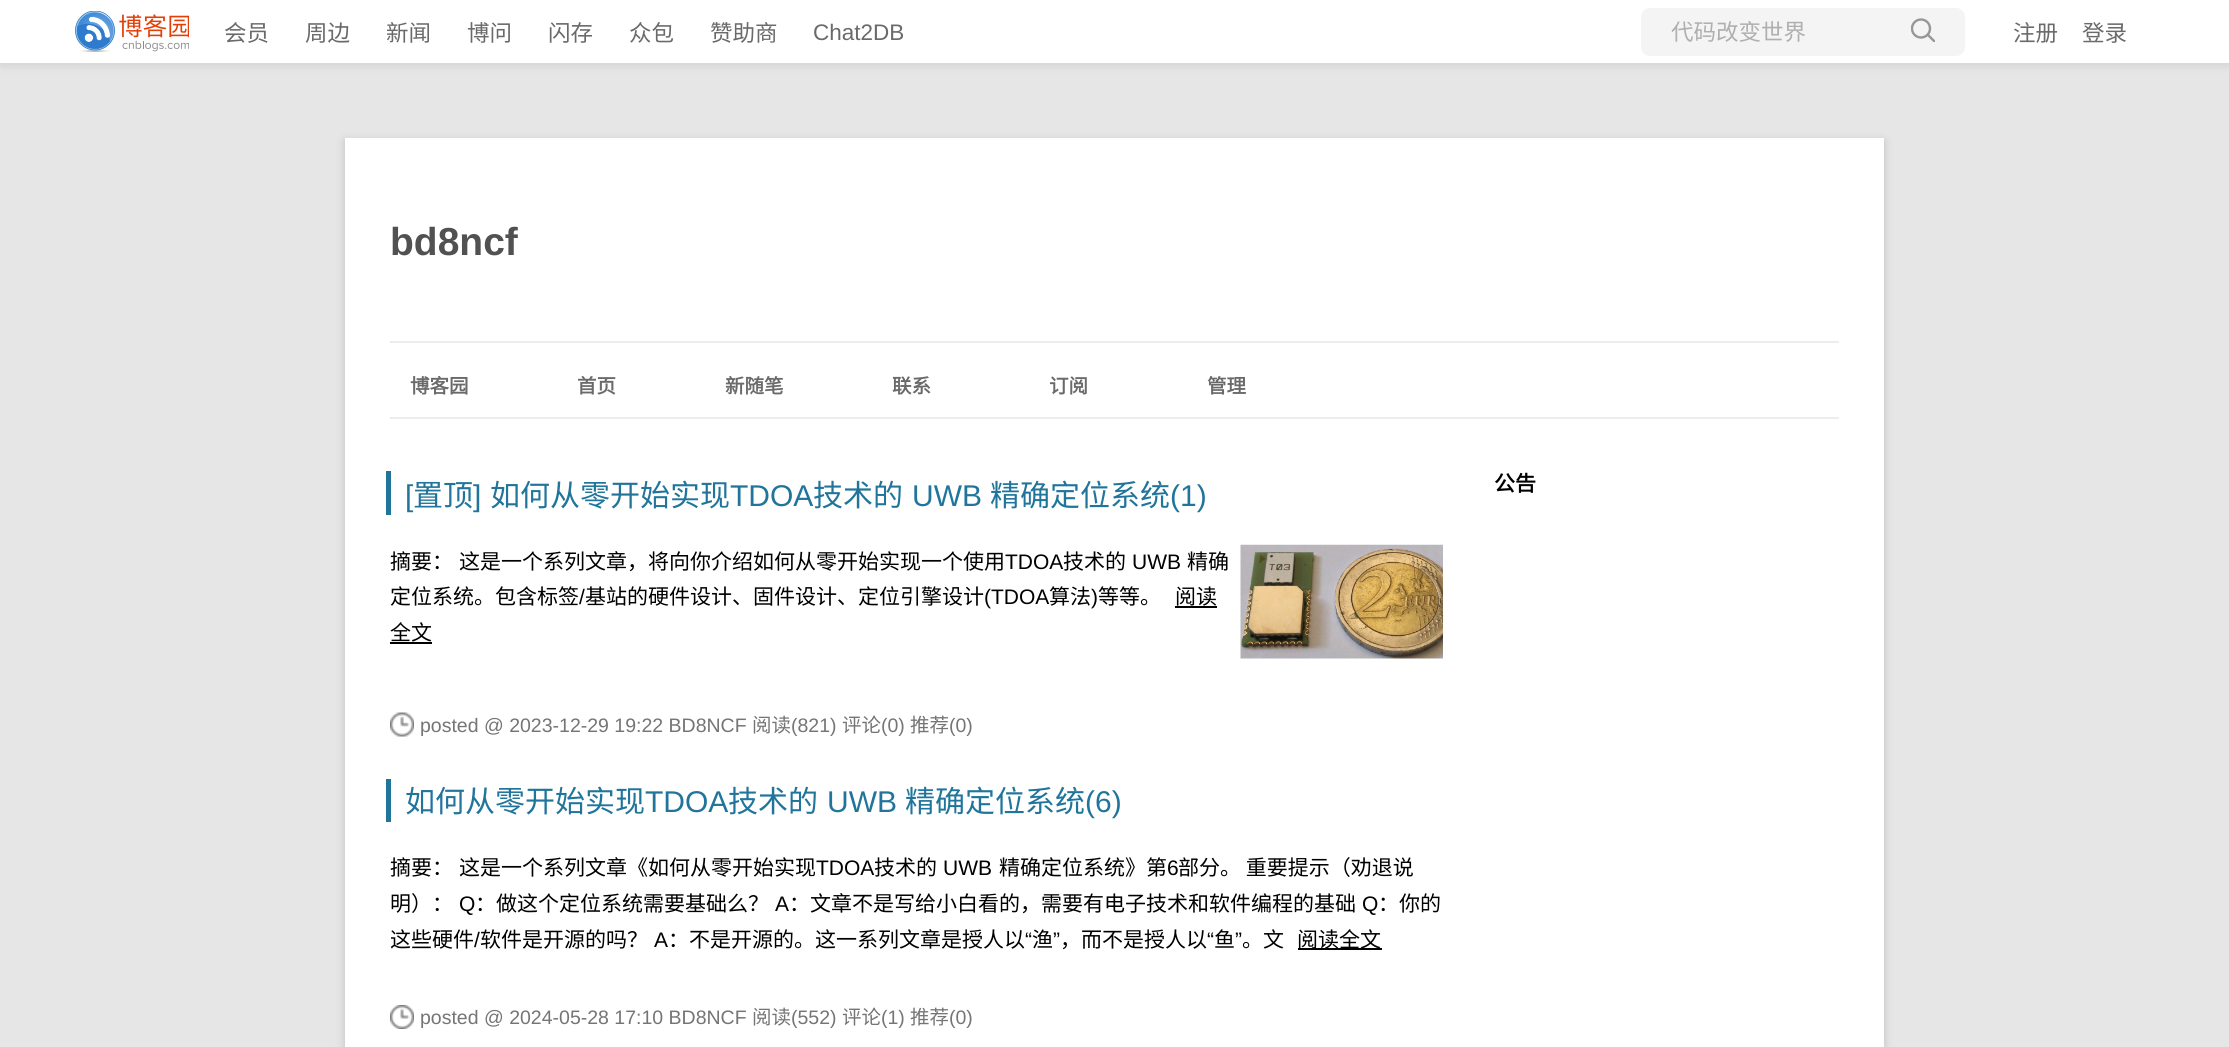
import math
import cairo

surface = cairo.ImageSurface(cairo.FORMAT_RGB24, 2229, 1047)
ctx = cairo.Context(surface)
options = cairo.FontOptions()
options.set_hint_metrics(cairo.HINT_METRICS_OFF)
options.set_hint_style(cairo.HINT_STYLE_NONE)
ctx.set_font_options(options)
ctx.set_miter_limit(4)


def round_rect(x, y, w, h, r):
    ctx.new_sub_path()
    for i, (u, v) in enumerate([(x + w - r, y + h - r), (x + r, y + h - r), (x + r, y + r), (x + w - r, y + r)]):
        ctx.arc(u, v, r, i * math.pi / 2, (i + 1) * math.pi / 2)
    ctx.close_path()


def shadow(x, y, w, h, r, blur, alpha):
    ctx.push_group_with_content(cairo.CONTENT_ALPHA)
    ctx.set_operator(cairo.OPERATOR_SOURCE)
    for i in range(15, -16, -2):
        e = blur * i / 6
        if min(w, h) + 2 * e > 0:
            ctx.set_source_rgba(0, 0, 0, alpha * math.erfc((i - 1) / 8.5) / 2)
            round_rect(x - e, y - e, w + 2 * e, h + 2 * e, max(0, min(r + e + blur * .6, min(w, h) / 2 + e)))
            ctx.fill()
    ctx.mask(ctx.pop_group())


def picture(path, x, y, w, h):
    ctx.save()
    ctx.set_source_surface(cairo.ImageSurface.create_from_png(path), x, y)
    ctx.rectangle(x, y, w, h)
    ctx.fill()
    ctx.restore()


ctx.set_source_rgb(0.902, 0.902, 0.902)
ctx.paint()
ctx.set_source_rgb(0.392, 0.392, 0.392)
shadow(0, 3, 2229, 63, 0, 4.5, 0.15)
ctx.set_source_rgb(1, 1, 1)
ctx.rectangle(0, 0, 2229, 63)
ctx.fill()
picture("img1.png", 75, 11, 114, 41)
ctx.select_font_face("Noto Sans CJK SC")
ctx.set_font_size(22.5)
ctx.set_source_rgb(0.416, 0.416, 0.416)
ctx.move_to(224, 41)
ctx.show_text("会员")
ctx.move_to(305, 41)
ctx.show_text("周边")
ctx.move_to(386, 41)
ctx.show_text("新闻")
ctx.move_to(467, 41)
ctx.show_text("博问")
ctx.move_to(548, 41)
ctx.show_text("闪存")
ctx.move_to(629, 41)
ctx.show_text("众包")
ctx.move_to(710, 41)
ctx.show_text("赞助商")
ctx.select_font_face("Liberation Sans")
ctx.move_to(813, 40)
ctx.show_text("Chat2DB")
ctx.set_source_rgb(0.957, 0.957, 0.957)
round_rect(1641, 8, 324, 48, 9)
ctx.fill()
ctx.select_font_face("Noto Sans CJK SC")
ctx.set_source_rgb(0.686, 0.686, 0.686)
ctx.move_to(1671, 40)
ctx.show_text("代码改变世界")
ctx.save()
ctx.rectangle(1911, 18, 24, 24)
ctx.clip()
ctx.arc(1921, 28.5, 9, 0, 2 * math.pi)
ctx.set_source_rgb(0.592, 0.592, 0.592)
ctx.set_line_width(2.4)
ctx.stroke()
ctx.new_path()
ctx.move_to(1927, 34)
ctx.line_to(1936.5, 43.5)
ctx.stroke()
ctx.restore()
ctx.set_source_rgb(0.416, 0.416, 0.416)
ctx.move_to(2013, 41)
ctx.show_text("注册")
ctx.move_to(2082, 41)
ctx.show_text("登录")
ctx.set_source_rgb(0.392, 0.392, 0.392)
shadow(345, 141, 1539, 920, 0, 4.5, 0.3)
ctx.set_source_rgb(1, 1, 1)
ctx.rectangle(345, 138, 1539, 909)
ctx.fill()
ctx.select_font_face("Liberation Sans", cairo.FONT_SLANT_NORMAL, cairo.FONT_WEIGHT_BOLD)
ctx.set_font_size(39)
ctx.set_source_rgb(0.318, 0.318, 0.318)
ctx.move_to(390, 255)
ctx.show_text("bd8ncf")
ctx.set_source_rgb(0.929, 0.929, 0.929)
ctx.rectangle(390, 341, 1449, 2)
ctx.fill()
ctx.rectangle(390, 417, 1449, 2)
ctx.fill()
ctx.select_font_face("Noto Sans CJK SC", cairo.FONT_SLANT_NORMAL, cairo.FONT_WEIGHT_BOLD)
ctx.set_font_size(19.5)
ctx.set_source_rgb(0.416, 0.416, 0.416)
ctx.move_to(410, 393)
ctx.show_text("博客园")
ctx.move_to(577, 393)
ctx.show_text("首页")
ctx.move_to(725, 393)
ctx.show_text("新随笔")
ctx.move_to(892, 393)
ctx.show_text("联系")
ctx.move_to(1049, 393)
ctx.show_text("订阅")
ctx.move_to(1207, 393)
ctx.show_text("管理")
ctx.set_source_rgb(0.129, 0.459, 0.608)
ctx.rectangle(386, 471, 5, 44)
ctx.fill()
ctx.select_font_face("Liberation Sans")
ctx.set_font_size(30)
ctx.move_to(405, 506)
ctx.show_text("[")
ctx.select_font_face("Noto Sans CJK SC")
ctx.move_to(413, 506)
ctx.show_text("置顶")
ctx.select_font_face("Liberation Sans")
ctx.move_to(473, 506)
ctx.show_text("]")
ctx.select_font_face("Noto Sans CJK SC")
ctx.move_to(490, 506)
ctx.show_text("如何从零开始实现")
ctx.select_font_face("Liberation Sans")
ctx.move_to(730, 506)
ctx.show_text("TDOA")
ctx.select_font_face("Noto Sans CJK SC")
ctx.move_to(813, 506)
ctx.show_text("技术的")
ctx.select_font_face("Liberation Sans")
ctx.move_to(912, 506)
ctx.show_text("UWB")
ctx.select_font_face("Noto Sans CJK SC")
ctx.move_to(990, 506)
ctx.show_text("精确定位系统")
ctx.select_font_face("Liberation Sans")
ctx.move_to(1170, 506)
ctx.show_text("(1)")
ctx.select_font_face("Noto Sans CJK SC")
ctx.set_font_size(21)
ctx.set_source_rgb(0, 0, 0)
ctx.move_to(390, 569)
ctx.show_text("摘要：")
ctx.move_to(459, 569)
ctx.show_text("这是一个系列文章，将向你介绍如何从零开始实现一个使用")
ctx.select_font_face("Liberation Sans")
ctx.move_to(1005, 569)
ctx.show_text("TDOA")
ctx.select_font_face("Noto Sans CJK SC")
ctx.move_to(1063, 569)
ctx.show_text("技术的")
ctx.select_font_face("Liberation Sans")
ctx.move_to(1132, 569)
ctx.show_text("UWB")
ctx.select_font_face("Noto Sans CJK SC")
ctx.move_to(1187, 569)
ctx.show_text("精确")
picture("img2.png", 1240, 544, 203, 115)
ctx.move_to(390, 604)
ctx.show_text("定位系统。包含标签")
ctx.select_font_face("Liberation Sans")
ctx.move_to(579, 604)
ctx.show_text("/")
ctx.select_font_face("Noto Sans CJK SC")
ctx.move_to(585, 604)
ctx.show_text("基站的硬件设计、固件设计、定位引擎设计")
ctx.select_font_face("Liberation Sans")
ctx.move_to(984, 604)
ctx.show_text("(TDOA")
ctx.select_font_face("Noto Sans CJK SC")
ctx.move_to(1049, 604)
ctx.show_text("算法")
ctx.select_font_face("Liberation Sans")
ctx.move_to(1091, 604)
ctx.show_text(")")
ctx.select_font_face("Noto Sans CJK SC")
ctx.move_to(1098, 604)
ctx.show_text("等等。")
ctx.move_to(1175, 604)
ctx.show_text("阅读")
ctx.rectangle(1175, 606, 42, 2)
ctx.fill()
ctx.move_to(390, 640)
ctx.show_text("全文")
ctx.rectangle(390, 642, 42, 2)
ctx.fill()
picture("img3.png", 390, 712, 24, 25)
ctx.select_font_face("Liberation Sans")
ctx.set_font_size(19.5)
ctx.set_source_rgb(0.459, 0.459, 0.459)
ctx.move_to(420, 732)
ctx.show_text("posted @ 2023-12-29 19:22 BD8NCF")
ctx.select_font_face("Noto Sans CJK SC")
ctx.move_to(752, 732)
ctx.show_text("阅读")
ctx.select_font_face("Liberation Sans")
ctx.move_to(791, 732)
ctx.show_text("(821)")
ctx.select_font_face("Noto Sans CJK SC")
ctx.move_to(842, 732)
ctx.show_text("评论")
ctx.select_font_face("Liberation Sans")
ctx.move_to(881, 732)
ctx.show_text("(0)")
ctx.select_font_face("Noto Sans CJK SC")
ctx.move_to(910, 732)
ctx.show_text("推荐")
ctx.select_font_face("Liberation Sans")
ctx.move_to(949, 732)
ctx.show_text("(0)")
ctx.set_source_rgb(0.129, 0.459, 0.608)
ctx.rectangle(386, 779, 5, 43)
ctx.fill()
ctx.select_font_face("Noto Sans CJK SC")
ctx.set_font_size(30)
ctx.move_to(405, 812)
ctx.show_text("如何从零开始实现")
ctx.select_font_face("Liberation Sans")
ctx.move_to(645, 812)
ctx.show_text("TDOA")
ctx.select_font_face("Noto Sans CJK SC")
ctx.move_to(728, 812)
ctx.show_text("技术的")
ctx.select_font_face("Liberation Sans")
ctx.move_to(827, 812)
ctx.show_text("UWB")
ctx.select_font_face("Noto Sans CJK SC")
ctx.move_to(905, 812)
ctx.show_text("精确定位系统")
ctx.select_font_face("Liberation Sans")
ctx.move_to(1085, 812)
ctx.show_text("(6)")
ctx.select_font_face("Noto Sans CJK SC")
ctx.set_font_size(21)
ctx.set_source_rgb(0, 0, 0)
ctx.move_to(390, 875)
ctx.show_text("摘要：")
ctx.move_to(459, 875)
ctx.show_text("这是一个系列文章《如何从零开始实现")
ctx.select_font_face("Liberation Sans")
ctx.move_to(816, 875)
ctx.show_text("TDOA")
ctx.select_font_face("Noto Sans CJK SC")
ctx.move_to(874, 875)
ctx.show_text("技术的")
ctx.select_font_face("Liberation Sans")
ctx.move_to(943, 875)
ctx.show_text("UWB")
ctx.select_font_face("Noto Sans CJK SC")
ctx.move_to(999, 875)
ctx.show_text("精确定位系统》第")
ctx.select_font_face("Liberation Sans")
ctx.move_to(1167, 875)
ctx.show_text("6")
ctx.select_font_face("Noto Sans CJK SC")
ctx.move_to(1178, 875)
ctx.show_text("部分。 重要提示（劝退说")
ctx.move_to(390, 911)
ctx.show_text("明）：")
ctx.select_font_face("Liberation Sans")
ctx.move_to(459, 911)
ctx.show_text("Q")
ctx.select_font_face("Noto Sans CJK SC")
ctx.move_to(475, 911)
ctx.show_text("：做这个定位系统需要基础么？")
ctx.select_font_face("Liberation Sans")
ctx.move_to(775, 911)
ctx.show_text("A")
ctx.select_font_face("Noto Sans CJK SC")
ctx.move_to(789, 911)
ctx.show_text("：文章不是写给小白看的，需要有电子技术和软件编程的基础")
ctx.select_font_face("Liberation Sans")
ctx.move_to(1362, 911)
ctx.show_text("Q")
ctx.select_font_face("Noto Sans CJK SC")
ctx.move_to(1378, 911)
ctx.show_text("：你的")
ctx.move_to(390, 947)
ctx.show_text("这些硬件")
ctx.select_font_face("Liberation Sans")
ctx.move_to(474, 947)
ctx.show_text("/")
ctx.select_font_face("Noto Sans CJK SC")
ctx.move_to(480, 947)
ctx.show_text("软件是开源的吗？")
ctx.select_font_face("Liberation Sans")
ctx.move_to(654, 947)
ctx.show_text("A")
ctx.select_font_face("Noto Sans CJK SC")
ctx.move_to(668, 947)
ctx.show_text("：不是开源的。这一系列文章是授人以")
ctx.select_font_face("Liberation Sans")
ctx.move_to(1025, 947)
ctx.show_text("“")
ctx.select_font_face("Noto Sans CJK SC")
ctx.move_to(1032, 947)
ctx.show_text("渔")
ctx.select_font_face("Liberation Sans")
ctx.move_to(1053, 947)
ctx.show_text("”")
ctx.select_font_face("Noto Sans CJK SC")
ctx.move_to(1060, 947)
ctx.show_text("，而不是授人以")
ctx.select_font_face("Liberation Sans")
ctx.move_to(1207, 947)
ctx.show_text("“")
ctx.select_font_face("Noto Sans CJK SC")
ctx.move_to(1214, 947)
ctx.show_text("鱼")
ctx.select_font_face("Liberation Sans")
ctx.move_to(1235, 947)
ctx.show_text("”")
ctx.select_font_face("Noto Sans CJK SC")
ctx.move_to(1242, 947)
ctx.show_text("。文")
ctx.rectangle(1298, 948, 84, 2)
ctx.fill()
ctx.move_to(1297, 947)
ctx.show_text("阅读全文")
picture("img4.png", 390, 1005, 24, 24)
ctx.select_font_face("Liberation Sans")
ctx.set_font_size(19.5)
ctx.set_source_rgb(0.459, 0.459, 0.459)
ctx.move_to(420, 1024)
ctx.show_text("posted @ 2024-05-28 17:10 BD8NCF")
ctx.select_font_face("Noto Sans CJK SC")
ctx.move_to(752, 1024)
ctx.show_text("阅读")
ctx.select_font_face("Liberation Sans")
ctx.move_to(791, 1024)
ctx.show_text("(552)")
ctx.select_font_face("Noto Sans CJK SC")
ctx.move_to(842, 1024)
ctx.show_text("评论")
ctx.select_font_face("Liberation Sans")
ctx.move_to(881, 1024)
ctx.show_text("(1)")
ctx.select_font_face("Noto Sans CJK SC")
ctx.move_to(910, 1024)
ctx.show_text("推荐")
ctx.select_font_face("Liberation Sans")
ctx.move_to(949, 1024)
ctx.show_text("(0)")
ctx.select_font_face("Noto Sans CJK SC", cairo.FONT_SLANT_NORMAL, cairo.FONT_WEIGHT_BOLD)
ctx.set_font_size(21)
ctx.set_source_rgb(0, 0, 0)
ctx.move_to(1494, 491)
ctx.show_text("公告")
surface.write_to_png("page.png")
